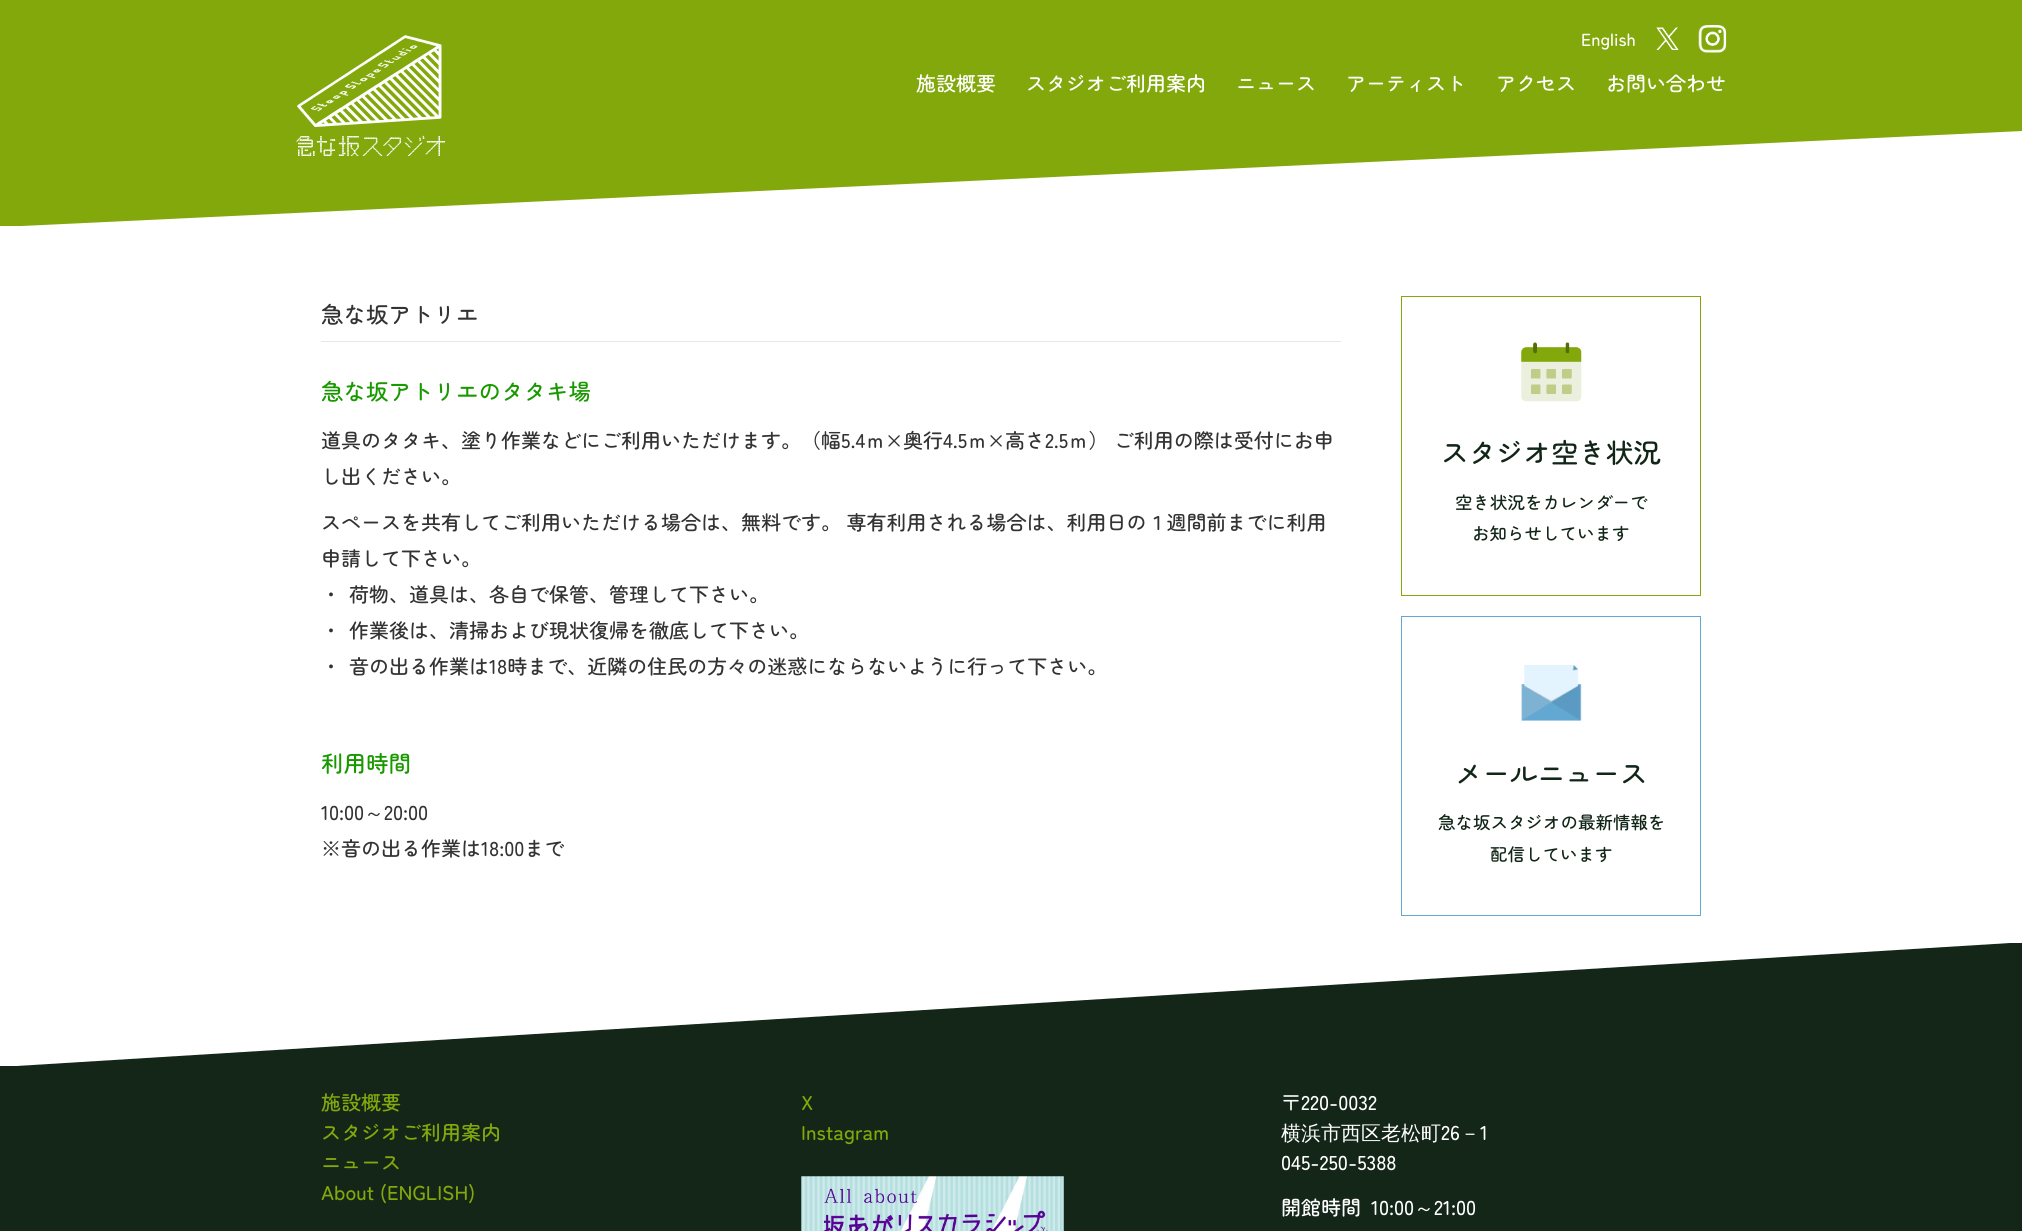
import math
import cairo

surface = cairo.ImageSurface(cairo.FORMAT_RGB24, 2022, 1231)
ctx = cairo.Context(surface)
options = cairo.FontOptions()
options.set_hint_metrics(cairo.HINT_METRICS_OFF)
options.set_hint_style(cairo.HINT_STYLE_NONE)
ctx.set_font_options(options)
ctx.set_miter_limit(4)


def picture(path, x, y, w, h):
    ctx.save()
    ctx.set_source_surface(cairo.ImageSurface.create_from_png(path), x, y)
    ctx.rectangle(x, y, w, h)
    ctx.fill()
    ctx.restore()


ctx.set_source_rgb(1, 1, 1)
ctx.paint()
ctx.set_source_rgb(0.51, 0.659, 0.047)
ctx.rectangle(0, 0, 2022, 226)
ctx.fill()
picture("img1.png", 296, 35, 150, 121)
ctx.select_font_face("Zen Maru Gothic Medium")
ctx.set_font_size(17.5)
ctx.set_source_rgb(1, 1, 1)
ctx.move_to(1581, 46)
ctx.show_text("English")
picture("img2.png", 1656, 27, 23, 23)
picture("img3.png", 1698, 25, 29, 28)
ctx.set_font_size(20)
ctx.move_to(916, 91)
ctx.show_text("施設概要")
ctx.move_to(1026, 91)
ctx.show_text("スタジオご利用案内")
ctx.move_to(1236, 91)
ctx.show_text("ニュース")
ctx.move_to(1346, 91)
ctx.show_text("アーティスト")
ctx.move_to(1496, 91)
ctx.show_text("アクセス")
ctx.move_to(1606, 91)
ctx.show_text("お問い合わせ")
ctx.new_path()
ctx.move_to(2022, 131)
ctx.line_to(2022, 227)
ctx.line_to(0, 227)
ctx.close_path()
ctx.fill()
ctx.set_source_rgb(0.898, 0.906, 0.922)
ctx.rectangle(321, 341, 1020, 1)
ctx.fill()
ctx.set_font_size(22.5)
ctx.set_source_rgb(0.2, 0.2, 0.2)
ctx.move_to(321, 323)
ctx.show_text("急な坂アトリエ")
ctx.set_source_rgb(0.098, 0.6, 0)
ctx.move_to(321, 400)
ctx.show_text("急な坂アトリエのタタキ場")
ctx.set_font_size(20)
ctx.set_source_rgb(0.2, 0.2, 0.2)
ctx.move_to(321, 448)
ctx.show_text("道具のタタキ、塗り作業などにご利用いただけます。（幅5.4ｍ×奥行4.5ｍ×高さ2.5ｍ） ご利用の際は受付にお申")
ctx.move_to(321, 484)
ctx.show_text("し出ください。")
ctx.move_to(321, 530)
ctx.show_text("スペースを共有してご利用いただける場合は、無料です。 専有利用される場合は、利用日の１週間前までに利用")
ctx.move_to(321, 566)
ctx.show_text("申請して下さい。")
ctx.move_to(321, 602)
ctx.show_text("・")
ctx.move_to(349, 602)
ctx.show_text("荷物、道具は、各自で保管、管理して下さい。")
ctx.move_to(321, 638)
ctx.show_text("・")
ctx.move_to(349, 638)
ctx.show_text("作業後は、清掃および現状復帰を徹底して下さい。")
ctx.move_to(321, 674)
ctx.show_text("・")
ctx.move_to(349, 674)
ctx.show_text("音の出る作業は18時まで、近隣の住民の方々の迷惑にならないように行って下さい。")
ctx.set_font_size(22.5)
ctx.set_source_rgb(0.098, 0.6, 0)
ctx.move_to(321, 772)
ctx.show_text("利用時間")
ctx.set_font_size(20)
ctx.set_source_rgb(0.2, 0.2, 0.2)
ctx.move_to(321, 820)
ctx.show_text("10:00")
ctx.select_font_face("WenQuanYi Zen Hei Medium")
ctx.move_to(364, 820)
ctx.show_text("～")
ctx.select_font_face("Zen Maru Gothic Medium")
ctx.move_to(384, 820)
ctx.show_text("20:00")
ctx.move_to(321, 856)
ctx.show_text("※音の出る作業は18:00まで")
ctx.rectangle(1401.5, 296.5, 299, 299)
ctx.set_source_rgb(0.51, 0.659, 0.047)
ctx.set_line_width(1)
ctx.stroke()
picture("img4.png", 1521, 342, 61, 60)
ctx.set_font_size(27.5)
ctx.set_source_rgb(0.071, 0.149, 0.094)
ctx.move_to(1441, 463)
ctx.show_text("スタジオ空き状況")
ctx.set_font_size(17.5)
ctx.move_to(1455, 509)
ctx.show_text("空き状況をカレンダーで")
ctx.move_to(1472, 540)
ctx.show_text("お知らせしています")
ctx.rectangle(1401.5, 616.5, 299, 299)
ctx.set_source_rgb(0.388, 0.659, 0.824)
ctx.stroke()
picture("img5.png", 1521, 665, 61, 56)
ctx.set_font_size(27.5)
ctx.set_source_rgb(0.071, 0.149, 0.094)
ctx.move_to(1455, 784)
ctx.show_text("メールニュース")
ctx.set_font_size(17.5)
ctx.move_to(1438, 829)
ctx.show_text("急な坂スタジオの最新情報を")
ctx.move_to(1490, 861)
ctx.show_text("配信しています")
ctx.set_source_rgb(0.075, 0.149, 0.094)
ctx.rectangle(0, 1066, 2022, 165)
ctx.fill()
ctx.new_path()
ctx.move_to(2022, 943)
ctx.line_to(2022, 1067)
ctx.line_to(0, 1067)
ctx.line_to(2010, 943)
ctx.close_path()
ctx.fill()
ctx.set_font_size(20)
ctx.set_source_rgb(0.51, 0.659, 0.047)
ctx.move_to(321, 1110)
ctx.show_text("施設概要")
ctx.move_to(321, 1140)
ctx.show_text("スタジオご利用案内")
ctx.move_to(321, 1170)
ctx.show_text("ニュース")
ctx.move_to(321, 1200)
ctx.show_text("About (ENGLISH)")
ctx.move_to(801, 1110)
ctx.show_text("X")
ctx.move_to(801, 1140)
ctx.show_text("Instagram")
picture("img6.png", 801, 1176, 263, 55)
ctx.set_source_rgb(1, 1, 1)
ctx.move_to(1281, 1110)
ctx.show_text("〒220-0032")
ctx.select_font_face("WenQuanYi Zen Hei Medium")
ctx.move_to(1281, 1140)
ctx.show_text("横浜市西区老松町")
ctx.select_font_face("Zen Maru Gothic Medium")
ctx.move_to(1441, 1140)
ctx.show_text("26")
ctx.select_font_face("WenQuanYi Zen Hei Medium")
ctx.move_to(1460, 1140)
ctx.show_text("－")
ctx.select_font_face("Zen Maru Gothic Medium")
ctx.move_to(1480, 1140)
ctx.show_text("1")
ctx.move_to(1281, 1170)
ctx.show_text("045-250-5388")
ctx.move_to(1281, 1215)
ctx.show_text("開館時間")
ctx.move_to(1371, 1215)
ctx.show_text("10:00")
ctx.select_font_face("WenQuanYi Zen Hei Medium")
ctx.move_to(1414, 1215)
ctx.show_text("～")
ctx.select_font_face("Zen Maru Gothic Medium")
ctx.move_to(1434, 1215)
ctx.show_text("21:00")
surface.write_to_png("page.png")
